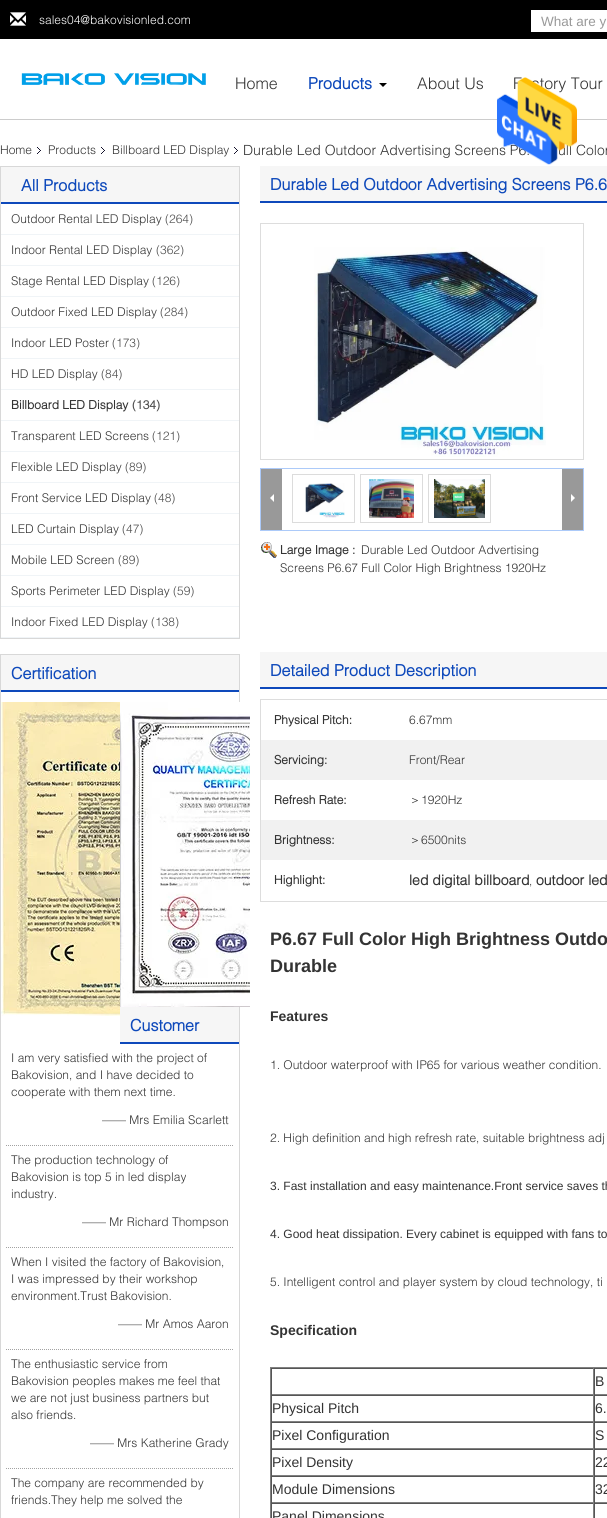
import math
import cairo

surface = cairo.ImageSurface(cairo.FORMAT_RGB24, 607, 1518)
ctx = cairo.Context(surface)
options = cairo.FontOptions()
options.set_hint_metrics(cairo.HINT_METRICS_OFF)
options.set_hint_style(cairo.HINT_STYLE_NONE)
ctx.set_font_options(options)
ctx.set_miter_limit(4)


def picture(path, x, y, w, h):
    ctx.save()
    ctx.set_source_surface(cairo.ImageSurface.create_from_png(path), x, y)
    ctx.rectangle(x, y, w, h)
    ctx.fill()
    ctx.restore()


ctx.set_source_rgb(1, 1, 1)
ctx.paint()
ctx.set_source_rgb(0, 0, 0)
ctx.rectangle(0, 0, 607, 39)
ctx.fill()
picture("img1.png", 10, 12, 16, 14)
ctx.select_font_face("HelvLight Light")
ctx.set_font_size(12)
ctx.set_source_rgb(1, 1, 1)
ctx.move_to(39, 24)
ctx.show_text("sales04@bakovisionled.com")
ctx.rectangle(531, 10, 76, 22)
ctx.fill()
ctx.select_font_face("Liberation Sans")
ctx.set_font_size(13.5)
ctx.set_source_rgb(0.6, 0.6, 0.6)
ctx.move_to(541, 26)
ctx.show_text("What are y")
ctx.set_source_rgb(0.8, 0.8, 0.8)
ctx.rectangle(0, 119, 607, 1)
ctx.fill()
picture("img2.png", 21, 73, 185, 12)
ctx.select_font_face("HelvLight Light")
ctx.set_font_size(16)
ctx.set_source_rgb(0.2, 0.2, 0.2)
ctx.move_to(235, 89)
ctx.show_text("Home")
ctx.select_font_face("HelvLight", cairo.FONT_SLANT_NORMAL, cairo.FONT_WEIGHT_BOLD)
ctx.set_source_rgb(0.055, 0.286, 0.733)
ctx.move_to(308, 89)
ctx.show_text("Products")
ctx.set_source_rgb(0, 0, 0)
ctx.new_path()
ctx.move_to(379, 83)
ctx.line_to(387, 83)
ctx.line_to(383, 87)
ctx.close_path()
ctx.fill()
ctx.select_font_face("HelvLight Light")
ctx.set_source_rgb(0.2, 0.2, 0.2)
ctx.move_to(417, 89)
ctx.show_text("About Us")
ctx.move_to(513, 89)
ctx.show_text("Factory Tour")
ctx.set_font_size(14)
ctx.move_to(243, 155)
ctx.show_text("Durable Led Outdoor Advertising Screens P6.")
ctx.move_to(558, 155)
ctx.show_text("ull Color")
picture("img3.png", 497, 77, 80, 88)
ctx.set_font_size(12)
ctx.move_to(0, 154)
ctx.show_text("Home")
picture("img4.png", 37, 147, 4, 7)
ctx.move_to(48, 154)
ctx.show_text("Products")
picture("img4.png", 101, 147, 4, 7)
ctx.move_to(112, 154)
ctx.show_text("Billboard LED Display")
picture("img4.png", 234, 147, 4, 7)
ctx.rectangle(0.5, 166.5, 239, 472)
ctx.set_source_rgb(0.847, 0.847, 0.847)
ctx.set_line_width(1)
ctx.stroke()
ctx.set_source_rgb(0.961, 0.961, 0.961)
ctx.rectangle(1, 167, 238, 35)
ctx.fill()
ctx.set_source_rgb(0.055, 0.286, 0.733)
ctx.rectangle(1, 202, 238, 2)
ctx.fill()
ctx.select_font_face("HelvLight", cairo.FONT_SLANT_NORMAL, cairo.FONT_WEIGHT_BOLD)
ctx.set_font_size(16)
ctx.move_to(21, 191)
ctx.show_text("All Products")
ctx.set_source_rgb(0.941, 0.957, 0.965)
ctx.rectangle(1, 234, 238, 1)
ctx.fill()
ctx.select_font_face("HelvLight Light")
ctx.set_font_size(12)
ctx.set_source_rgb(0.2, 0.2, 0.2)
ctx.move_to(11, 223)
ctx.show_text("Outdoor Rental LED Display")
ctx.set_source_rgb(0.306, 0.306, 0.306)
ctx.move_to(165, 223)
ctx.show_text("(264)")
ctx.set_source_rgb(0.941, 0.957, 0.965)
ctx.rectangle(1, 265, 238, 1)
ctx.fill()
ctx.set_source_rgb(0.2, 0.2, 0.2)
ctx.move_to(11, 254)
ctx.show_text("Indoor Rental LED Display")
ctx.set_source_rgb(0.306, 0.306, 0.306)
ctx.move_to(156, 254)
ctx.show_text("(362)")
ctx.set_source_rgb(0.941, 0.957, 0.965)
ctx.rectangle(1, 296, 238, 1)
ctx.fill()
ctx.set_source_rgb(0.2, 0.2, 0.2)
ctx.move_to(11, 285)
ctx.show_text("Stage Rental LED Display")
ctx.set_source_rgb(0.306, 0.306, 0.306)
ctx.move_to(152, 285)
ctx.show_text("(126)")
ctx.set_source_rgb(0.941, 0.957, 0.965)
ctx.rectangle(1, 327, 238, 1)
ctx.fill()
ctx.set_source_rgb(0.2, 0.2, 0.2)
ctx.move_to(11, 316)
ctx.show_text("Outdoor Fixed LED Display")
ctx.set_source_rgb(0.306, 0.306, 0.306)
ctx.move_to(160, 316)
ctx.show_text("(284)")
ctx.set_source_rgb(0.941, 0.957, 0.965)
ctx.rectangle(1, 358, 238, 1)
ctx.fill()
ctx.set_source_rgb(0.2, 0.2, 0.2)
ctx.move_to(11, 347)
ctx.show_text("Indoor LED Poster")
ctx.set_source_rgb(0.306, 0.306, 0.306)
ctx.move_to(112, 347)
ctx.show_text("(173)")
ctx.set_source_rgb(0.941, 0.957, 0.965)
ctx.rectangle(1, 389, 238, 1)
ctx.fill()
ctx.set_source_rgb(0.2, 0.2, 0.2)
ctx.move_to(11, 378)
ctx.show_text("HD LED Display")
ctx.set_source_rgb(0.306, 0.306, 0.306)
ctx.move_to(101, 378)
ctx.show_text("(84)")
ctx.set_source_rgb(0.941, 0.957, 0.965)
ctx.rectangle(1, 420, 238, 1)
ctx.fill()
ctx.select_font_face("HelvLight", cairo.FONT_SLANT_NORMAL, cairo.FONT_WEIGHT_BOLD)
ctx.set_source_rgb(0.2, 0.2, 0.2)
ctx.move_to(11, 409)
ctx.show_text("Billboard LED Display")
ctx.set_source_rgb(0.306, 0.306, 0.306)
ctx.move_to(132, 409)
ctx.show_text("(134)")
ctx.set_source_rgb(0.941, 0.957, 0.965)
ctx.rectangle(1, 451, 238, 1)
ctx.fill()
ctx.select_font_face("HelvLight Light")
ctx.set_source_rgb(0.2, 0.2, 0.2)
ctx.move_to(11, 440)
ctx.show_text("Transparent LED Screens")
ctx.set_source_rgb(0.306, 0.306, 0.306)
ctx.move_to(152, 440)
ctx.show_text("(121)")
ctx.set_source_rgb(0.941, 0.957, 0.965)
ctx.rectangle(1, 482, 238, 1)
ctx.fill()
ctx.set_source_rgb(0.2, 0.2, 0.2)
ctx.move_to(11, 471)
ctx.show_text("Flexible LED Display")
ctx.set_source_rgb(0.306, 0.306, 0.306)
ctx.move_to(125, 471)
ctx.show_text("(89)")
ctx.set_source_rgb(0.941, 0.957, 0.965)
ctx.rectangle(1, 513, 238, 1)
ctx.fill()
ctx.set_source_rgb(0.2, 0.2, 0.2)
ctx.move_to(11, 502)
ctx.show_text("Front Service LED Display")
ctx.set_source_rgb(0.306, 0.306, 0.306)
ctx.move_to(154, 502)
ctx.show_text("(48)")
ctx.set_source_rgb(0.941, 0.957, 0.965)
ctx.rectangle(1, 544, 238, 1)
ctx.fill()
ctx.set_source_rgb(0.2, 0.2, 0.2)
ctx.move_to(11, 533)
ctx.show_text("LED Curtain Display")
ctx.set_source_rgb(0.306, 0.306, 0.306)
ctx.move_to(122, 533)
ctx.show_text("(47)")
ctx.set_source_rgb(0.941, 0.957, 0.965)
ctx.rectangle(1, 575, 238, 1)
ctx.fill()
ctx.set_source_rgb(0.2, 0.2, 0.2)
ctx.move_to(11, 564)
ctx.show_text("Mobile LED Screen")
ctx.set_source_rgb(0.306, 0.306, 0.306)
ctx.move_to(118, 564)
ctx.show_text("(89)")
ctx.set_source_rgb(0.941, 0.957, 0.965)
ctx.rectangle(1, 606, 238, 1)
ctx.fill()
ctx.set_source_rgb(0.2, 0.2, 0.2)
ctx.move_to(11, 595)
ctx.show_text("Sports Perimeter LED Display")
ctx.set_source_rgb(0.306, 0.306, 0.306)
ctx.move_to(173, 595)
ctx.show_text("(59)")
ctx.set_source_rgb(0.941, 0.957, 0.965)
ctx.rectangle(1, 637, 238, 1)
ctx.fill()
ctx.set_source_rgb(0.2, 0.2, 0.2)
ctx.move_to(11, 626)
ctx.show_text("Indoor Fixed LED Display")
ctx.set_source_rgb(0.306, 0.306, 0.306)
ctx.move_to(151, 626)
ctx.show_text("(138)")
ctx.rectangle(0.5, 654.5, 239, 159)
ctx.set_source_rgb(0.847, 0.847, 0.847)
ctx.stroke()
ctx.set_source_rgb(0.961, 0.961, 0.961)
ctx.rectangle(1, 655, 238, 35)
ctx.fill()
ctx.set_source_rgb(0.055, 0.286, 0.733)
ctx.rectangle(1, 690, 238, 2)
ctx.fill()
ctx.select_font_face("HelvLight", cairo.FONT_SLANT_NORMAL, cairo.FONT_WEIGHT_BOLD)
ctx.set_font_size(16)
ctx.move_to(11, 679)
ctx.show_text("Certification")
picture("img5.png", 1, 702, 119, 314)
picture("img6.png", 120, 702, 130, 305)
ctx.set_source_rgb(0.847, 0.847, 0.847)
ctx.rectangle(239, 1007, 1, 511)
ctx.fill()
ctx.rectangle(0, 814, 1, 704)
ctx.fill()
ctx.set_source_rgb(0.961, 0.961, 0.961)
ctx.rectangle(120, 1007, 119, 35)
ctx.fill()
ctx.set_source_rgb(0.055, 0.286, 0.733)
ctx.rectangle(120, 1042, 119, 2)
ctx.fill()
ctx.move_to(130, 1031)
ctx.show_text("Customer")
ctx.new_path()
ctx.move_to(6, 1145.5)
ctx.line_to(234, 1145.5)
ctx.set_source_rgb(0.635, 0.635, 0.635)
ctx.set_dash([1, 1])
ctx.stroke()
ctx.select_font_face("HelvLight Light")
ctx.set_font_size(12)
ctx.set_source_rgb(0.2, 0.2, 0.2)
ctx.move_to(11, 1062)
ctx.show_text("I am very satisfied with the project of")
ctx.move_to(11, 1079)
ctx.show_text("Bakovision, and I have decided to")
ctx.move_to(11, 1096)
ctx.show_text("cooperate with them next time.")
ctx.move_to(102, 1124)
ctx.show_text("—— Mrs Emilia Scarlett")
ctx.new_path()
ctx.move_to(6, 1247.5)
ctx.line_to(234, 1247.5)
ctx.set_source_rgb(0.635, 0.635, 0.635)
ctx.stroke()
ctx.set_source_rgb(0.2, 0.2, 0.2)
ctx.move_to(11, 1164)
ctx.show_text("The production technology of")
ctx.move_to(11, 1181)
ctx.show_text("Bakovision is top 5 in led display")
ctx.move_to(11, 1198)
ctx.show_text("industry.")
ctx.move_to(82, 1226)
ctx.show_text("—— Mr Richard Thompson")
ctx.new_path()
ctx.move_to(6, 1349.5)
ctx.line_to(234, 1349.5)
ctx.set_source_rgb(0.635, 0.635, 0.635)
ctx.stroke()
ctx.set_source_rgb(0.2, 0.2, 0.2)
ctx.move_to(11, 1266)
ctx.show_text("When I visited the factory of Bakovision,")
ctx.move_to(11, 1283)
ctx.show_text("I was impressed by their workshop")
ctx.move_to(11, 1300)
ctx.show_text("environment.Trust Bakovision.")
ctx.move_to(118, 1328)
ctx.show_text("—— Mr Amos Aaron")
ctx.new_path()
ctx.move_to(6, 1468.5)
ctx.line_to(234, 1468.5)
ctx.set_source_rgb(0.635, 0.635, 0.635)
ctx.stroke()
ctx.set_source_rgb(0.2, 0.2, 0.2)
ctx.move_to(11, 1368)
ctx.show_text("The enthusiastic service from")
ctx.move_to(11, 1385)
ctx.show_text("Bakovision peoples makes me feel that")
ctx.move_to(11, 1402)
ctx.show_text("we are not just business partners but")
ctx.move_to(11, 1419)
ctx.show_text("also friends.")
ctx.move_to(90, 1447)
ctx.show_text("—— Mrs Katherine Grady")
ctx.move_to(11, 1487)
ctx.show_text("The company are recommended by")
ctx.move_to(11, 1504)
ctx.show_text("friends.They help me solved the")
ctx.set_source_rgb(0.961, 0.961, 0.961)
ctx.rectangle(260, 166, 347, 35)
ctx.fill()
ctx.set_source_rgb(0.055, 0.286, 0.733)
ctx.rectangle(260, 201, 347, 2)
ctx.fill()
ctx.select_font_face("HelvLight", cairo.FONT_SLANT_NORMAL, cairo.FONT_WEIGHT_BOLD)
ctx.set_font_size(16)
ctx.move_to(270, 190)
ctx.show_text("Durable Led Outdoor Advertising Screens P6.6")
ctx.rectangle(260.5, 223.5, 323, 236)
ctx.set_source_rgb(0.867, 0.867, 0.867)
ctx.set_dash([])
ctx.stroke()
picture("img7.png", 314, 247, 232, 210)
ctx.rectangle(260.5, 468.5, 323, 62)
ctx.set_source_rgb(0.675, 0.792, 0.973)
ctx.stroke()
ctx.set_source_rgb(0.6, 0.6, 0.6)
ctx.rectangle(261, 469, 21, 61)
ctx.fill()
ctx.set_source_rgb(1, 1, 1)
ctx.new_path()
ctx.move_to(274, 494)
ctx.line_to(274, 502)
ctx.line_to(270, 498)
ctx.close_path()
ctx.fill()
ctx.rectangle(292.5, 474.5, 62, 48)
ctx.set_source_rgb(0.863, 0.863, 0.863)
ctx.stroke()
picture("img8.png", 305, 483, 40, 35)
ctx.rectangle(360.5, 474.5, 62, 48)
ctx.stroke()
picture("img9.png", 369, 479, 45, 39)
ctx.rectangle(428.5, 474.5, 62, 48)
ctx.stroke()
picture("img10.png", 434, 479, 51, 39)
ctx.set_source_rgb(0.6, 0.6, 0.6)
ctx.rectangle(562, 469, 21, 61)
ctx.fill()
ctx.set_source_rgb(1, 1, 1)
ctx.new_path()
ctx.move_to(571, 502)
ctx.line_to(571, 494)
ctx.line_to(575, 498)
ctx.close_path()
ctx.fill()
picture("img11.png", 261, 542, 16, 16)
ctx.set_font_size(12)
ctx.set_source_rgb(0.2, 0.2, 0.2)
ctx.move_to(280, 554)
ctx.show_text("Large Image :")
ctx.select_font_face("HelvLight Light")
ctx.move_to(361, 554)
ctx.show_text("Durable Led Outdoor Advertising")
ctx.move_to(280, 572)
ctx.show_text("Screens P6.67 Full Color High Brightness 1920Hz")
ctx.set_source_rgb(0.961, 0.961, 0.961)
ctx.rectangle(260, 652, 347, 35)
ctx.fill()
ctx.set_source_rgb(0.055, 0.286, 0.733)
ctx.rectangle(260, 687, 347, 2)
ctx.fill()
ctx.select_font_face("HelvLight", cairo.FONT_SLANT_NORMAL, cairo.FONT_WEIGHT_BOLD)
ctx.set_font_size(16)
ctx.move_to(270, 676)
ctx.show_text("Detailed Product Description")
ctx.rectangle(260.5, 699.5, 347, 202)
ctx.set_source_rgb(0.867, 0.867, 0.867)
ctx.stroke()
ctx.set_font_size(12)
ctx.set_source_rgb(0.2, 0.2, 0.2)
ctx.move_to(274, 724)
ctx.show_text("Physical Pitch:")
ctx.select_font_face("HelvLight Light")
ctx.move_to(409, 724)
ctx.show_text("6.67mm")
ctx.set_source_rgb(0.945, 0.945, 0.945)
ctx.rectangle(261, 740, 346, 40)
ctx.fill()
ctx.select_font_face("HelvLight", cairo.FONT_SLANT_NORMAL, cairo.FONT_WEIGHT_BOLD)
ctx.set_source_rgb(0.2, 0.2, 0.2)
ctx.move_to(274, 764)
ctx.show_text("Servicing:")
ctx.select_font_face("HelvLight Light")
ctx.move_to(409, 764)
ctx.show_text("Front/Rear")
ctx.select_font_face("HelvLight", cairo.FONT_SLANT_NORMAL, cairo.FONT_WEIGHT_BOLD)
ctx.move_to(274, 804)
ctx.show_text("Refresh Rate:")
ctx.select_font_face("WenQuanYi Zen Hei Medium")
ctx.move_to(409, 804)
ctx.show_text("＞")
ctx.select_font_face("HelvLight Light")
ctx.move_to(421, 804)
ctx.show_text("1920Hz")
ctx.set_source_rgb(0.945, 0.945, 0.945)
ctx.rectangle(261, 820, 346, 40)
ctx.fill()
ctx.select_font_face("HelvLight", cairo.FONT_SLANT_NORMAL, cairo.FONT_WEIGHT_BOLD)
ctx.set_source_rgb(0.2, 0.2, 0.2)
ctx.move_to(274, 844)
ctx.show_text("Brightness:")
ctx.select_font_face("WenQuanYi Zen Hei Medium")
ctx.move_to(409, 844)
ctx.show_text("＞")
ctx.select_font_face("HelvLight Light")
ctx.move_to(421, 844)
ctx.show_text("6500nits")
ctx.select_font_face("HelvLight", cairo.FONT_SLANT_NORMAL, cairo.FONT_WEIGHT_BOLD)
ctx.move_to(274, 884)
ctx.show_text("Highlight:")
ctx.set_font_size(14)
ctx.move_to(409, 885)
ctx.show_text("led digital billboard")
ctx.select_font_face("HelvLight Light")
ctx.set_font_size(12)
ctx.move_to(529, 885)
ctx.show_text(",")
ctx.select_font_face("HelvLight", cairo.FONT_SLANT_NORMAL, cairo.FONT_WEIGHT_BOLD)
ctx.set_font_size(14)
ctx.move_to(536, 885)
ctx.show_text("outdoor led")
ctx.select_font_face("Liberation Sans", cairo.FONT_SLANT_NORMAL, cairo.FONT_WEIGHT_BOLD)
ctx.set_font_size(18)
ctx.move_to(270, 945)
ctx.show_text("P6.67 Full Color High Brightness Outdo")
ctx.move_to(270, 972)
ctx.show_text("Durable")
ctx.set_font_size(14)
ctx.move_to(270, 1021)
ctx.show_text("Features")
ctx.select_font_face("HelvLight Light")
ctx.set_font_size(12)
ctx.move_to(270, 1069)
ctx.show_text("1. Outdoor waterproof with IP65 for various weather condition.")
ctx.move_to(270, 1142)
ctx.show_text("2. High definition and high refresh rate, suitable brightness adj")
ctx.select_font_face("Liberation Sans")
ctx.move_to(270, 1190)
ctx.show_text("3. Fast installation and easy maintenance.Front service saves th")
ctx.move_to(270, 1238)
ctx.show_text("4. Good heat dissipation. Every cabinet is equipped with fans to")
ctx.select_font_face("HelvLight Light")
ctx.move_to(270, 1286)
ctx.show_text("5. Intelligent control and player system by cloud technology, ti")
ctx.select_font_face("Liberation Sans", cairo.FONT_SLANT_NORMAL, cairo.FONT_WEIGHT_BOLD)
ctx.set_font_size(14)
ctx.move_to(270, 1335)
ctx.show_text("Specification")
ctx.set_source_rgb(0.502, 0.502, 0.502)
ctx.rectangle(270, 1367, 337, 1)
ctx.fill()
ctx.rectangle(270, 1367, 1, 151)
ctx.fill()
ctx.set_source_rgb(0.333, 0.333, 0.333)
ctx.rectangle(271, 1368, 336, 1)
ctx.fill()
ctx.set_source_rgb(0.502, 0.502, 0.502)
ctx.rectangle(593, 1368, 1, 27)
ctx.fill()
ctx.rectangle(271, 1394, 336, 1)
ctx.fill()
ctx.set_source_rgb(0.333, 0.333, 0.333)
ctx.rectangle(271, 1368, 1, 27)
ctx.fill()
ctx.rectangle(594, 1368, 1, 27)
ctx.fill()
ctx.select_font_face("Liberation Sans")
ctx.set_source_rgb(0.2, 0.2, 0.2)
ctx.move_to(595, 1386)
ctx.show_text("B")
ctx.set_source_rgb(0.333, 0.333, 0.333)
ctx.rectangle(271, 1395, 336, 1)
ctx.fill()
ctx.set_source_rgb(0.502, 0.502, 0.502)
ctx.rectangle(593, 1395, 1, 27)
ctx.fill()
ctx.rectangle(271, 1421, 336, 1)
ctx.fill()
ctx.set_source_rgb(0.333, 0.333, 0.333)
ctx.rectangle(271, 1395, 1, 27)
ctx.fill()
ctx.set_source_rgb(0.2, 0.2, 0.2)
ctx.move_to(272, 1413)
ctx.show_text("Physical Pitch")
ctx.set_source_rgb(0.333, 0.333, 0.333)
ctx.rectangle(594, 1395, 1, 27)
ctx.fill()
ctx.set_source_rgb(0.2, 0.2, 0.2)
ctx.move_to(595, 1413)
ctx.show_text("6.")
ctx.set_source_rgb(0.333, 0.333, 0.333)
ctx.rectangle(271, 1422, 336, 1)
ctx.fill()
ctx.set_source_rgb(0.502, 0.502, 0.502)
ctx.rectangle(593, 1422, 1, 27)
ctx.fill()
ctx.rectangle(271, 1448, 336, 1)
ctx.fill()
ctx.set_source_rgb(0.333, 0.333, 0.333)
ctx.rectangle(271, 1422, 1, 27)
ctx.fill()
ctx.set_source_rgb(0.2, 0.2, 0.2)
ctx.move_to(272, 1440)
ctx.show_text("Pixel Configuration")
ctx.set_source_rgb(0.333, 0.333, 0.333)
ctx.rectangle(594, 1422, 1, 27)
ctx.fill()
ctx.set_source_rgb(0.2, 0.2, 0.2)
ctx.move_to(595, 1440)
ctx.show_text("S")
ctx.set_source_rgb(0.333, 0.333, 0.333)
ctx.rectangle(271, 1449, 336, 1)
ctx.fill()
ctx.set_source_rgb(0.502, 0.502, 0.502)
ctx.rectangle(593, 1449, 1, 27)
ctx.fill()
ctx.rectangle(271, 1475, 336, 1)
ctx.fill()
ctx.set_source_rgb(0.333, 0.333, 0.333)
ctx.rectangle(271, 1449, 1, 27)
ctx.fill()
ctx.set_source_rgb(0.2, 0.2, 0.2)
ctx.move_to(272, 1467)
ctx.show_text("Pixel Density")
ctx.set_source_rgb(0.333, 0.333, 0.333)
ctx.rectangle(594, 1449, 1, 27)
ctx.fill()
ctx.set_source_rgb(0.2, 0.2, 0.2)
ctx.move_to(595, 1467)
ctx.show_text("22")
ctx.set_source_rgb(0.333, 0.333, 0.333)
ctx.rectangle(271, 1476, 336, 1)
ctx.fill()
ctx.set_source_rgb(0.502, 0.502, 0.502)
ctx.rectangle(593, 1476, 1, 27)
ctx.fill()
ctx.rectangle(271, 1502, 336, 1)
ctx.fill()
ctx.set_source_rgb(0.333, 0.333, 0.333)
ctx.rectangle(271, 1476, 1, 27)
ctx.fill()
ctx.set_source_rgb(0.2, 0.2, 0.2)
ctx.move_to(272, 1494)
ctx.show_text("Module Dimensions")
ctx.set_source_rgb(0.333, 0.333, 0.333)
ctx.rectangle(594, 1476, 1, 27)
ctx.fill()
ctx.set_source_rgb(0.2, 0.2, 0.2)
ctx.move_to(595, 1494)
ctx.show_text("32")
ctx.set_source_rgb(0.333, 0.333, 0.333)
ctx.rectangle(271, 1503, 336, 1)
ctx.fill()
ctx.set_source_rgb(0.502, 0.502, 0.502)
ctx.rectangle(593, 1503, 1, 15)
ctx.fill()
ctx.set_source_rgb(0.333, 0.333, 0.333)
ctx.rectangle(271, 1503, 1, 15)
ctx.fill()
ctx.set_source_rgb(0.2, 0.2, 0.2)
ctx.move_to(272, 1521)
ctx.show_text("Panel Dimensions")
ctx.set_source_rgb(0.333, 0.333, 0.333)
ctx.rectangle(594, 1503, 1, 15)
ctx.fill()
surface.write_to_png("page.png")
